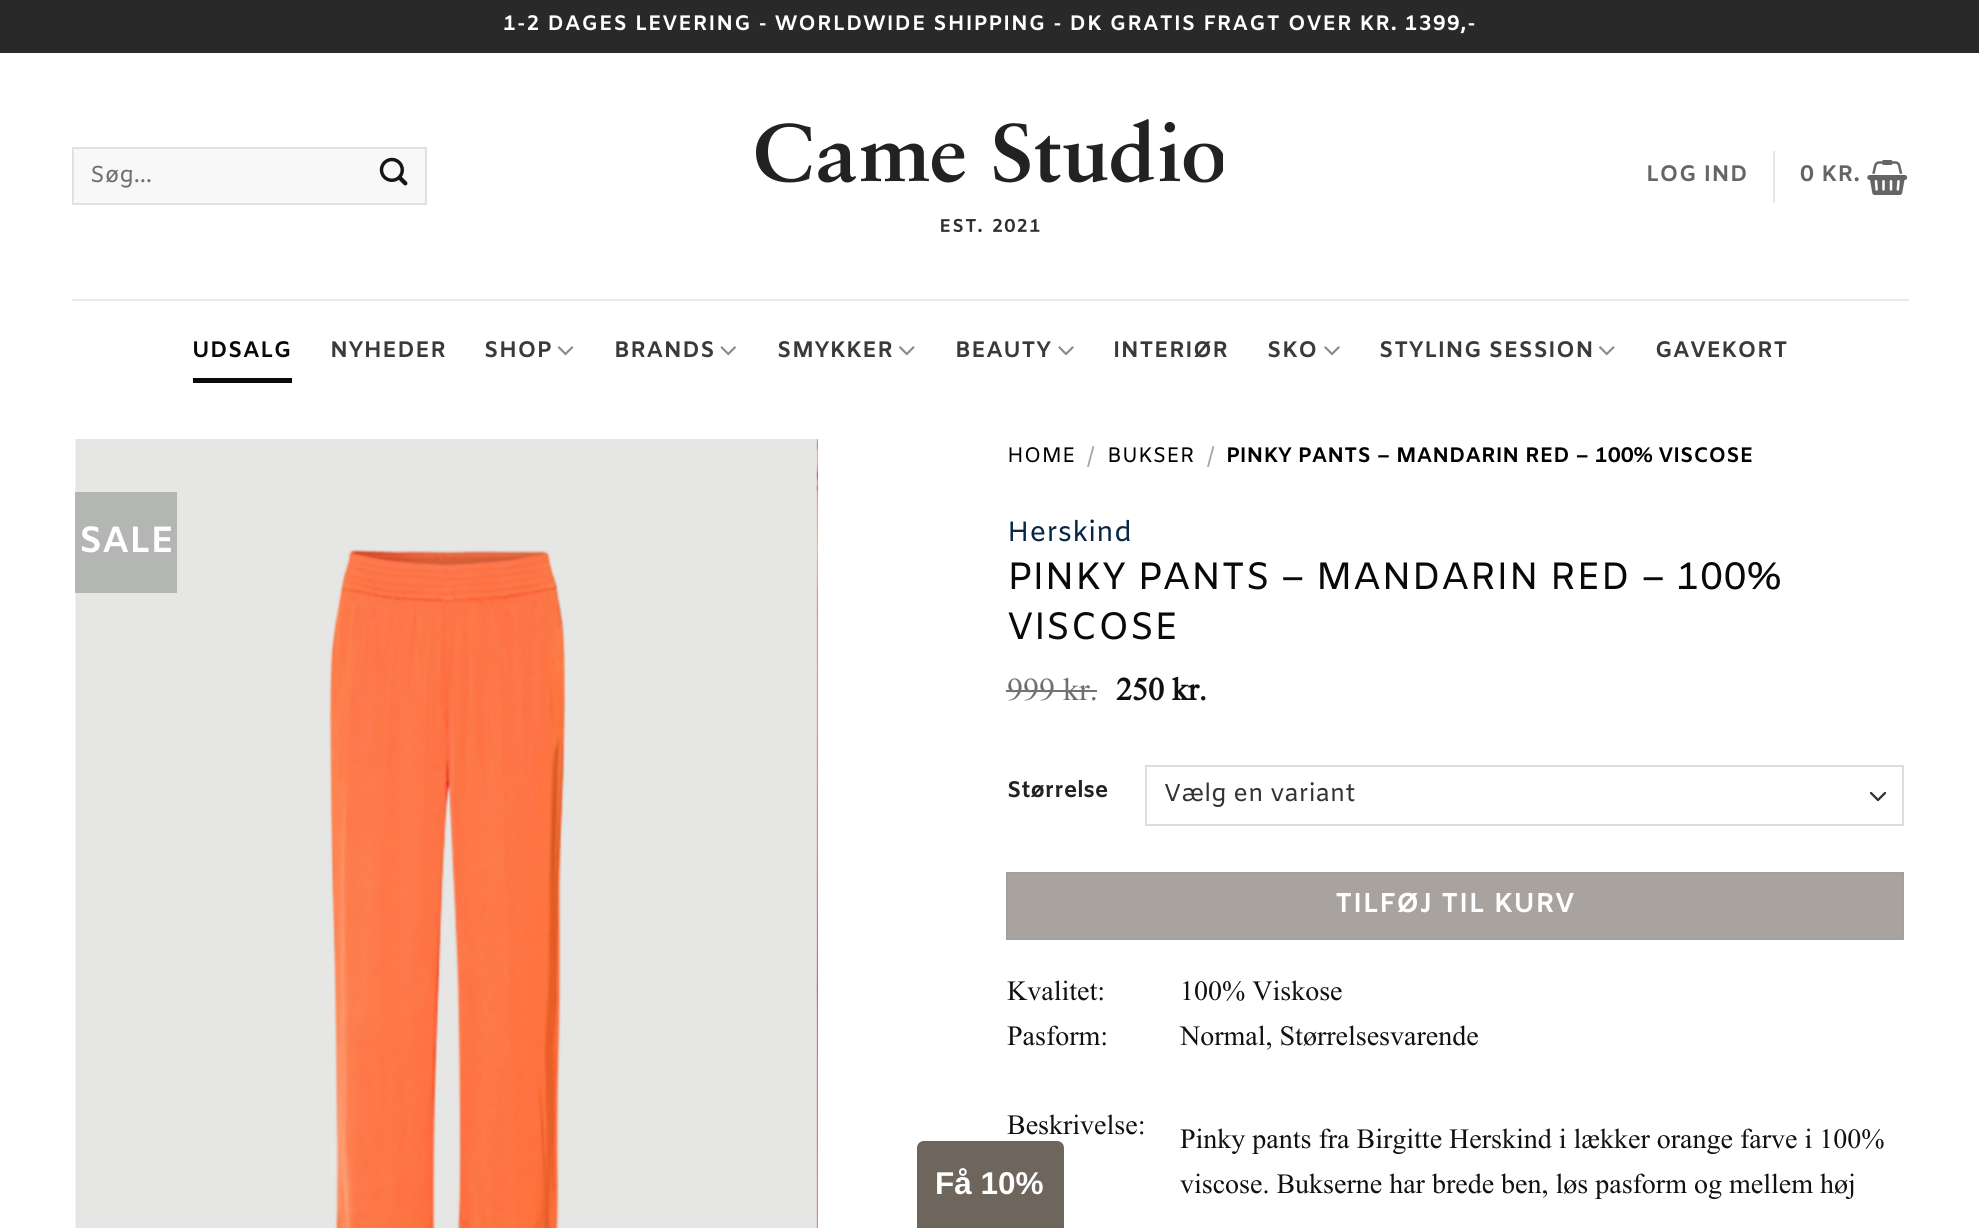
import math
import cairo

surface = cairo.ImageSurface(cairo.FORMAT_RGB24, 1979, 1228)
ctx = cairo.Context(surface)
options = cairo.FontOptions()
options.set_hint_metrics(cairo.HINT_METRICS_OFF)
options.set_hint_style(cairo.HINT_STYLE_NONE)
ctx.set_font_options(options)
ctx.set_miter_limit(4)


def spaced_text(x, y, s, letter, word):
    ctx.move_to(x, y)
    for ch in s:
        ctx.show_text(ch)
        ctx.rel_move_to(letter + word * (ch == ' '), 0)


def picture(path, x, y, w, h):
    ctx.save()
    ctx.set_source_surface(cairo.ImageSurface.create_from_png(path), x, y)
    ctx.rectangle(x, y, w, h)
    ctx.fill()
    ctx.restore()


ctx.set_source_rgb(1, 1, 1)
ctx.paint()
ctx.set_source_rgb(0.161, 0.161, 0.161)
ctx.rectangle(0, 0, 1979, 53)
ctx.fill()
ctx.select_font_face("Amiko", cairo.FONT_SLANT_NORMAL, cairo.FONT_WEIGHT_BOLD)
ctx.set_font_size(21)
ctx.set_source_rgb(1, 1, 1)
spaced_text(503, 30, "1-2 DAGES LEVERING - WORLDWIDE SHIPPING - DK GRATIS FRAGT OVER KR. 1399,-", 1.05, 0)
ctx.set_source_rgb(0.969, 0.969, 0.969)
ctx.rectangle(73, 148, 353, 56)
ctx.fill_preserve()
ctx.set_source_rgb(0.882, 0.882, 0.882)
ctx.stroke()
ctx.select_font_face("Amiko")
ctx.set_font_size(23)
ctx.set_source_rgb(0.439, 0.439, 0.439)
ctx.move_to(90, 182)
ctx.show_text("Søg…")
picture("img1.png", 379, 157, 29, 29)
picture("img2.png", 756, 119, 467, 114)
ctx.select_font_face("Amiko", cairo.FONT_SLANT_NORMAL, cairo.FONT_WEIGHT_BOLD)
ctx.set_font_size(22.5)
ctx.set_source_rgb(0.396, 0.396, 0.396)
spaced_text(1646, 181, "LOG IND", 0.5, 0)
ctx.set_source_rgb(0.902, 0.902, 0.902)
ctx.rectangle(1773, 151, 2, 52)
ctx.fill()
ctx.set_source_rgb(0.396, 0.396, 0.396)
spaced_text(1800, 181, "0 KR.", 0.5, 0)
picture("img3.png", 1867, 160, 41, 35)
ctx.set_source_rgb(0.91, 0.91, 0.91)
ctx.rectangle(72, 299, 1837, 2)
ctx.fill()
ctx.set_source_rgb(0.039, 0.039, 0.039)
spaced_text(192, 357, "UDSALG", 0.5, 0)
ctx.rectangle(193, 378, 99, 5)
ctx.fill()
ctx.set_source_rgb(0.227, 0.227, 0.227)
spaced_text(330, 357, "NYHEDER", 0.5, 0)
spaced_text(484, 357, "SHOP", 0.5, 0)
picture("img4.png", 557, 346, 17, 10)
spaced_text(614, 357, "BRANDS", 0.5, 0)
picture("img5.png", 720, 346, 16, 10)
spaced_text(777, 357, "SMYKKER", 0.5, 0)
picture("img6.png", 899, 346, 16, 10)
spaced_text(955, 357, "BEAUTY", 0.5, 0)
picture("img7.png", 1058, 346, 16, 10)
spaced_text(1113, 357, "INTERIØR", 0.5, 0)
spaced_text(1267, 357, "SKO", 0.5, 0)
picture("img7.png", 1324, 346, 16, 10)
spaced_text(1379, 357, "STYLING SESSION", 0.5, 0)
picture("img6.png", 1599, 346, 16, 10)
spaced_text(1655, 357, "GAVEKORT", 0.5, 0)
picture("img8.png", 75, 439, 743, 789)
picture("img9.png", 816, 439, 2, 789)
ctx.set_source_rgb(0.706, 0.714, 0.706)
ctx.rectangle(75, 492, 102, 101)
ctx.fill()
ctx.set_font_size(36.5)
ctx.set_source_rgb(1, 1, 1)
ctx.move_to(79, 552)
ctx.show_text("SALE")
ctx.select_font_face("Amiko")
ctx.set_font_size(21)
ctx.set_source_rgb(0, 0, 0)
ctx.move_to(1007, 462)
ctx.show_text("HOME")
ctx.set_source_rgb(0.651, 0.651, 0.651)
ctx.move_to(1087, 462)
ctx.show_text("/")
ctx.set_source_rgb(0, 0, 0)
ctx.move_to(1107, 462)
ctx.show_text("BUKSER")
ctx.set_source_rgb(0.651, 0.651, 0.651)
ctx.move_to(1207, 462)
ctx.show_text("/")
ctx.select_font_face("Amiko", cairo.FONT_SLANT_NORMAL, cairo.FONT_WEIGHT_BOLD)
ctx.set_source_rgb(0, 0, 0)
ctx.move_to(1226, 462)
ctx.show_text("PINKY PANTS – MANDARIN RED – 100% VISCOSE")
ctx.select_font_face("Amiko")
ctx.set_font_size(28)
ctx.set_source_rgb(0.035, 0.153, 0.275)
ctx.move_to(1007, 541)
ctx.show_text("Herskind")
ctx.set_font_size(38.1)
ctx.set_source_rgb(0.039, 0.039, 0.039)
ctx.move_to(1007, 589)
ctx.show_text("PINKY PANTS – MANDARIN RED – 100%")
ctx.move_to(1007, 639)
ctx.show_text("VISCOSE")
ctx.select_font_face("Times New Roman")
ctx.set_font_size(32)
ctx.set_source_rgb(0.439, 0.439, 0.439)
ctx.move_to(1007, 700)
ctx.show_text("999 kr.")
ctx.set_source_rgb(0.451, 0.451, 0.451)
ctx.rectangle(1006, 690, 91, 2)
ctx.fill()
ctx.select_font_face("Times New Roman", cairo.FONT_SLANT_NORMAL, cairo.FONT_WEIGHT_BOLD)
ctx.set_source_rgb(0.067, 0.067, 0.067)
ctx.move_to(1116, 700)
ctx.show_text("250 kr.")
ctx.select_font_face("Amiko", cairo.FONT_SLANT_NORMAL, cairo.FONT_WEIGHT_BOLD)
ctx.set_font_size(22.5)
ctx.set_source_rgb(0.133, 0.133, 0.133)
ctx.move_to(1007, 797)
ctx.show_text("Størrelse")
ctx.new_path()
ctx.move_to(1871, 793)
ctx.line_to(1878, 800)
ctx.line_to(1885, 793)
ctx.set_source_rgb(0.2, 0.2, 0.2)
ctx.set_line_width(2.3)
ctx.set_line_cap(cairo.LINE_CAP_ROUND)
ctx.set_line_join(cairo.LINE_JOIN_ROUND)
ctx.stroke()
ctx.rectangle(1146, 766, 757, 59)
ctx.set_source_rgb(0.867, 0.867, 0.867)
ctx.set_line_width(2)
ctx.set_line_cap(cairo.LINE_CAP_BUTT)
ctx.set_line_join(cairo.LINE_JOIN_MITER)
ctx.stroke()
ctx.select_font_face("Amiko")
ctx.set_font_size(24.5)
ctx.set_source_rgb(0.2, 0.2, 0.2)
ctx.move_to(1164, 801)
ctx.show_text("Vælg en variant")
ctx.set_source_rgb(0.659, 0.639, 0.62)
ctx.rectangle(1007, 873, 896, 66)
ctx.fill_preserve()
ctx.set_source_rgb(0.647, 0.627, 0.608)
ctx.stroke()
ctx.select_font_face("Amiko", cairo.FONT_SLANT_NORMAL, cairo.FONT_WEIGHT_BOLD)
ctx.set_font_size(27.25)
ctx.set_source_rgb(1, 1, 1)
spaced_text(1335, 912, "TILFØJ TIL KURV", 0.75, 0)
ctx.select_font_face("Times New Roman")
ctx.set_font_size(28)
ctx.set_source_rgb(0.067, 0.067, 0.067)
ctx.move_to(1007, 1000)
ctx.show_text("Kvalitet:")
ctx.move_to(1007, 1045)
ctx.show_text("Pasform:")
ctx.move_to(1007, 1134)
ctx.show_text("Beskrivelse:")
ctx.move_to(1180, 1000)
ctx.show_text("100% Viskose")
ctx.move_to(1180, 1045)
ctx.show_text("Normal, Størrelsesvarende")
ctx.move_to(1180, 1148)
ctx.show_text("Pinky pants fra Birgitte Herskind i lækker orange farve i 100%")
ctx.move_to(1180, 1193)
ctx.show_text("viscose. Bukserne har brede ben, løs pasform og mellem høj")
ctx.set_source_rgb(0.431, 0.4, 0.365)
ctx.new_path()
ctx.move_to(924, 1141)
ctx.line_to(1057, 1141)
ctx.curve_to(1061, 1141, 1064, 1144, 1064, 1148)
ctx.line_to(1064, 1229)
ctx.line_to(917, 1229)
ctx.line_to(917, 1148)
ctx.curve_to(917, 1144, 920, 1141, 924, 1141)
ctx.close_path()
ctx.fill()
ctx.select_font_face("Liberation Sans", cairo.FONT_SLANT_NORMAL, cairo.FONT_WEIGHT_BOLD)
ctx.set_font_size(31.5)
ctx.set_source_rgb(1, 1, 1)
ctx.move_to(935, 1194)
ctx.show_text("Få 10%")
surface.write_to_png("page.png")
